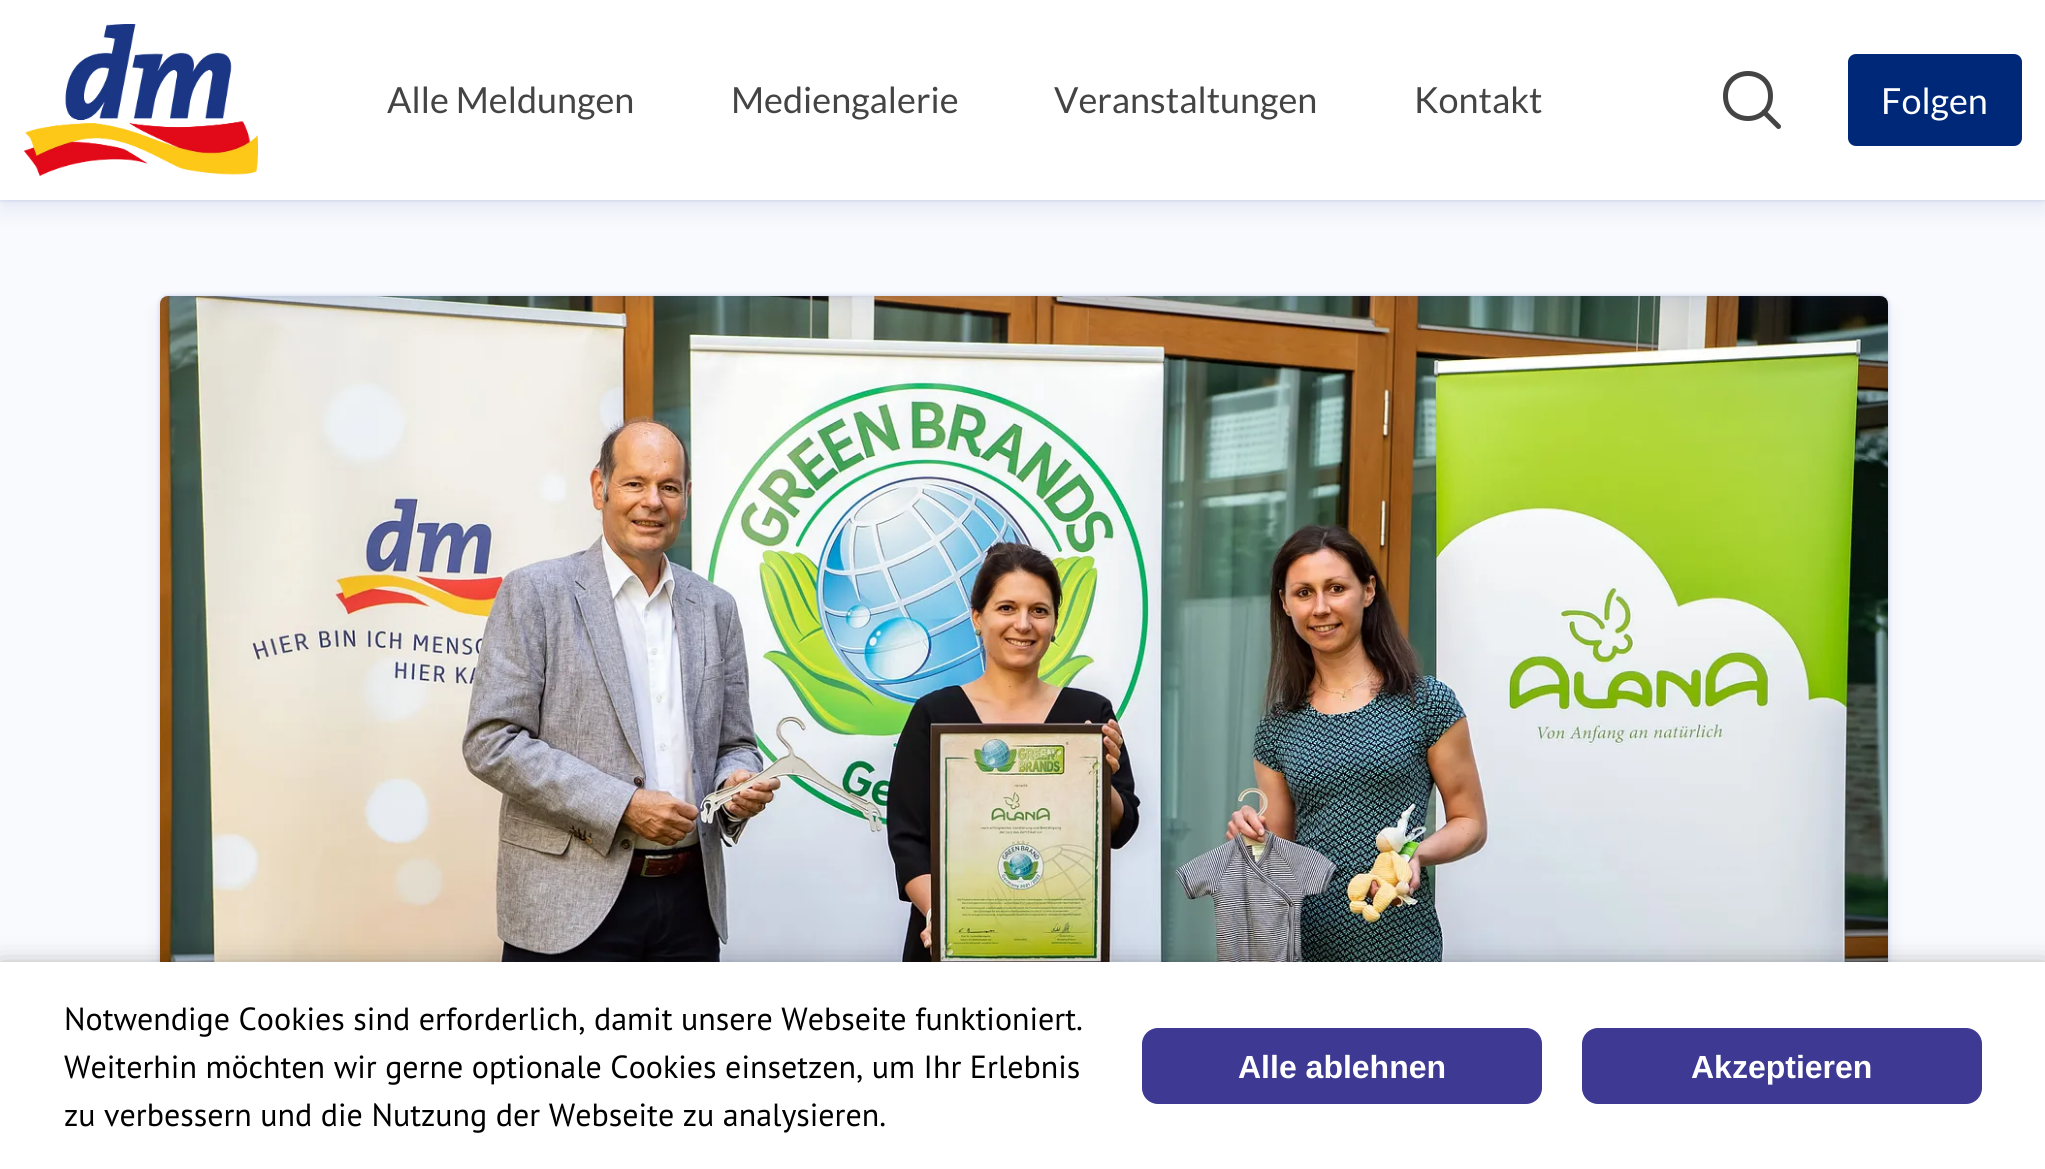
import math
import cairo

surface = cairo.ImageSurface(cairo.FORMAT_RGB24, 2045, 1169)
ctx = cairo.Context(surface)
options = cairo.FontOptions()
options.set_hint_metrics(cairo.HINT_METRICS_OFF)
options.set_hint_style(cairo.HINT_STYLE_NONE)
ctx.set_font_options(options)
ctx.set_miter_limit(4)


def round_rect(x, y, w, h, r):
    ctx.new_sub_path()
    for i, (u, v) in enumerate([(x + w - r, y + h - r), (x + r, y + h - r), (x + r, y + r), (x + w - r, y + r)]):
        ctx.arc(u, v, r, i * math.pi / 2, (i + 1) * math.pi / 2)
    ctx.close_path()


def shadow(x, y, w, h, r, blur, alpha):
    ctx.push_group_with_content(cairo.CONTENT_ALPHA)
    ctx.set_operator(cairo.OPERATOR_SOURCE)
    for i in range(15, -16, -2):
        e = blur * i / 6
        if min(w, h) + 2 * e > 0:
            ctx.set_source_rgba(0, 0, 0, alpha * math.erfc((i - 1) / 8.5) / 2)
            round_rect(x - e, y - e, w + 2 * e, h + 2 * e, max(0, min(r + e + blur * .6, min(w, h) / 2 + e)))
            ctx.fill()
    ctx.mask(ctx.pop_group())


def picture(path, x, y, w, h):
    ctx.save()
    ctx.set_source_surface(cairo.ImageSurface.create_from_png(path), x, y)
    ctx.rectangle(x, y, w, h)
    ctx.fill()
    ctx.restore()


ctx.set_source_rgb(0.969, 0.98, 0.992)
ctx.paint()
ctx.set_source_rgb(0.192, 0.286, 0.643)
shadow(160, 296, 1728, 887, 8, 2, 0.14)
shadow(160, 296, 1728, 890, 8, 3, 0.1)
shadow(160, 308, 1728, 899, 8, 10, 0.08)
picture("img1.png", 160, 296, 1728, 8)
picture("img2.png", 160, 296, 1728, 666)
shadow(0, 0, 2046, 200, 0, 2, 0.14)
shadow(0, 0, 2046, 200, 0, 3, 0.1)
shadow(0, 12, 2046, 200, 0, 10, 0.08)
ctx.set_source_rgb(1, 1, 1)
ctx.rectangle(0, 0, 2045, 200)
ctx.fill()
picture("img3.png", 24, 24, 234, 152)
ctx.new_path()
ctx.move_to(1770.5, 96)
ctx.curve_to(1770.5, 126, 1725.5, 126, 1725.5, 96)
ctx.curve_to(1725.5, 66, 1770.5, 66, 1770.5, 96)
ctx.close_path()
ctx.move_to(1778.5, 126.5)
ctx.line_to(1764, 112)
ctx.set_source_rgb(0.267, 0.267, 0.267)
ctx.set_line_width(5)
ctx.set_line_cap(cairo.LINE_CAP_ROUND)
ctx.stroke()
ctx.set_source_rgb(0, 0.157, 0.471)
round_rect(1849, 55, 172, 90, 7)
ctx.fill_preserve()
ctx.set_line_width(2)
ctx.set_line_cap(cairo.LINE_CAP_BUTT)
ctx.stroke()
ctx.save()
round_rect(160, 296, 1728, 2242, 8)
ctx.clip()
ctx.set_source_rgb(0.192, 0.286, 0.643)
shadow(56, 24, 1856, 272, 8, 2, 0.14)
shadow(56, 36, 1856, 272, 8, 10, 0.08)
ctx.restore()
ctx.select_font_face("Lato")
ctx.set_font_size(36)
ctx.set_source_rgb(0.267, 0.267, 0.267)
ctx.move_to(387, 113)
ctx.show_text("Alle Meldungen")
ctx.move_to(731, 113)
ctx.show_text("Mediengalerie")
ctx.move_to(1054, 113)
ctx.show_text("Veranstaltungen")
ctx.move_to(1414, 113)
ctx.show_text("Kontakt")
ctx.set_source_rgb(1, 1, 1)
ctx.move_to(1881, 114)
ctx.show_text("Folgen")
ctx.set_source_rgb(0, 0, 0)
shadow(0, 972, 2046, 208, 0, 15, 0.5)
ctx.set_source_rgb(1, 1, 1)
ctx.rectangle(0, 962, 2045, 207)
ctx.fill()
ctx.select_font_face("PT Sans")
ctx.set_font_size(32)
ctx.set_source_rgb(0, 0, 0)
ctx.move_to(64, 1030)
ctx.show_text("Notwendige Cookies sind erforderlich, damit unsere Webseite funktioniert.")
ctx.move_to(64, 1078)
ctx.show_text("Weiterhin möchten wir gerne optionale Cookies einsetzen, um Ihr Erlebnis")
ctx.move_to(64, 1126)
ctx.show_text("zu verbessern und die Nutzung der Webseite zu analysieren.")
ctx.set_source_rgb(0.243, 0.227, 0.576)
round_rect(1143, 1029, 398, 74, 15)
ctx.fill_preserve()
ctx.stroke()
ctx.select_font_face("Liberation Sans", cairo.FONT_SLANT_NORMAL, cairo.FONT_WEIGHT_BOLD)
ctx.set_source_rgb(1, 1, 1)
ctx.move_to(1238, 1078)
ctx.show_text("Alle ablehnen")
ctx.set_source_rgb(0.243, 0.227, 0.576)
round_rect(1583, 1029, 398, 74, 15)
ctx.fill_preserve()
ctx.stroke()
ctx.set_source_rgb(1, 1, 1)
ctx.move_to(1691, 1078)
ctx.show_text("Akzeptieren")
surface.write_to_png("page.png")
